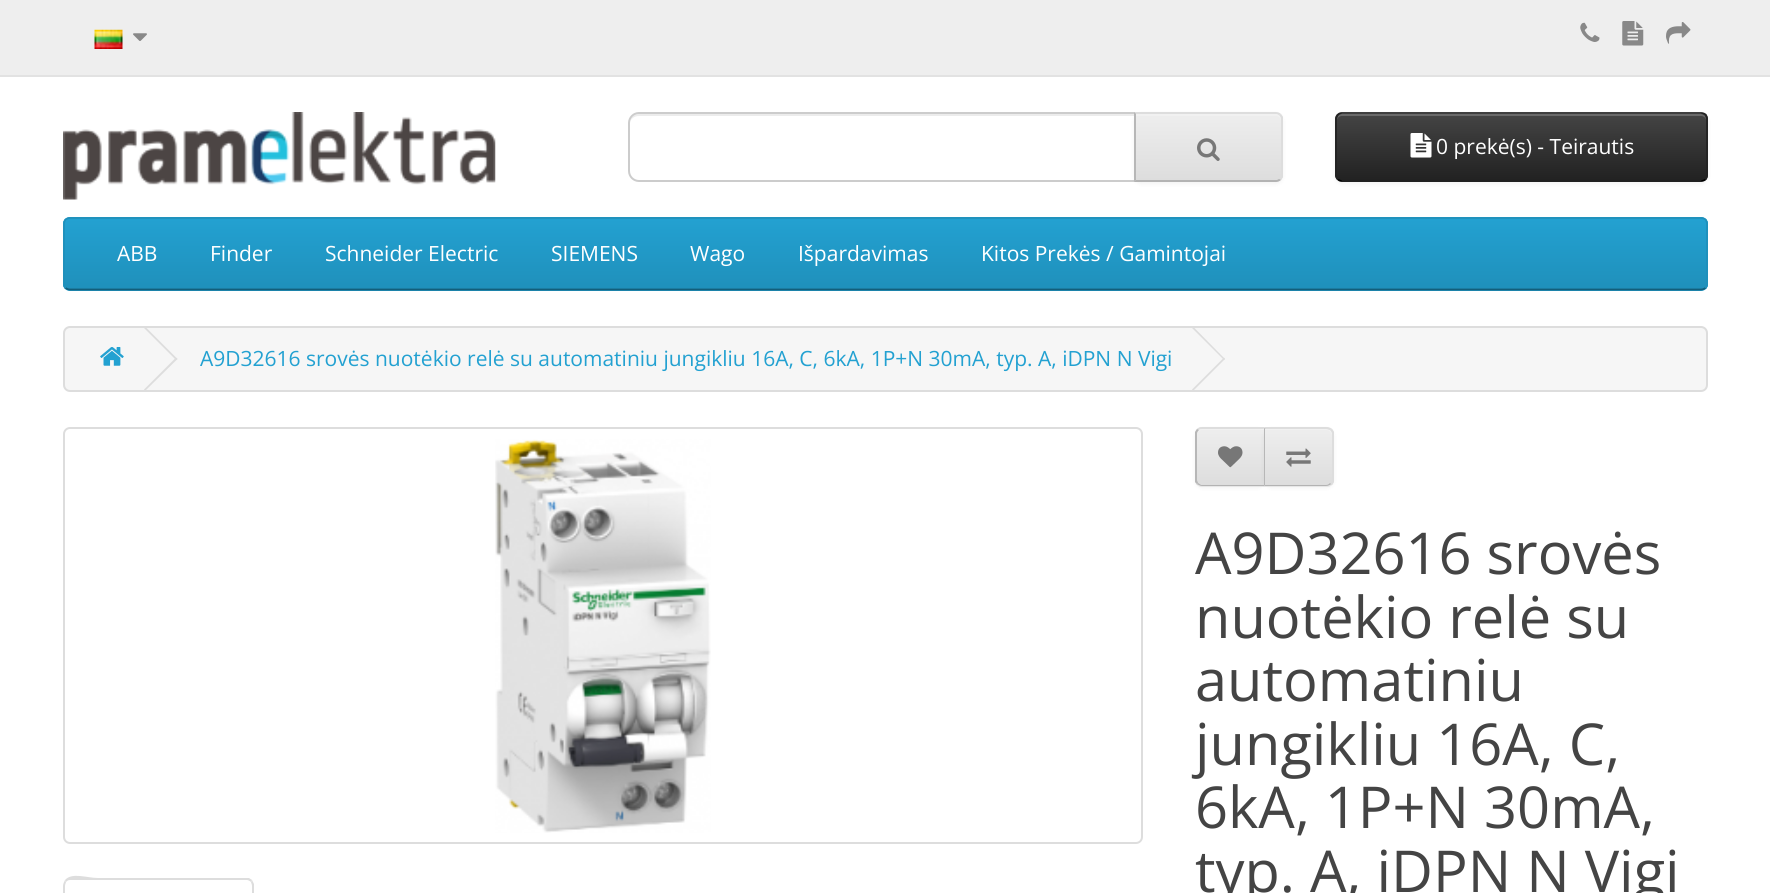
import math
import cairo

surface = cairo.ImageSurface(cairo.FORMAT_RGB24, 1770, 893)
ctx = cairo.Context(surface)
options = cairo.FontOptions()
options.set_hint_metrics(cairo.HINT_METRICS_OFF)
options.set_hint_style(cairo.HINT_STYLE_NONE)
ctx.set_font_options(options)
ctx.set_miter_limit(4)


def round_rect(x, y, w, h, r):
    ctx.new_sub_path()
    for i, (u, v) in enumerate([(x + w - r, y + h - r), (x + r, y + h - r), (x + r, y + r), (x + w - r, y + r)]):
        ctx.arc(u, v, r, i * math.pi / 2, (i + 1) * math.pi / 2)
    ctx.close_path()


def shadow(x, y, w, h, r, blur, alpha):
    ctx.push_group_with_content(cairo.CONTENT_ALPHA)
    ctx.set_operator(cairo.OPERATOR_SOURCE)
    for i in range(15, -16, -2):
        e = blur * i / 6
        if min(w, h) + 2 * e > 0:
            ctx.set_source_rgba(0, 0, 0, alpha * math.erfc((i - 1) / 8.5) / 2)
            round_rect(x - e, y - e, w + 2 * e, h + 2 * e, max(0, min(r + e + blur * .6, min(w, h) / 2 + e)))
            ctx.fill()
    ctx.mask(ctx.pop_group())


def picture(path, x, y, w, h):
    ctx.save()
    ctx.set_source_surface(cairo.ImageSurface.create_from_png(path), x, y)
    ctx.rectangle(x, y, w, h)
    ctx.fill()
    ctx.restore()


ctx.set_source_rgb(1, 1, 1)
ctx.paint()
ctx.set_source_rgb(0.933, 0.933, 0.933)
ctx.rectangle(0, 0, 1770, 75)
ctx.fill()
ctx.set_source_rgb(0.886, 0.886, 0.886)
ctx.rectangle(0, 75, 1770, 2)
ctx.fill()
picture("img1.png", 94, 29, 29, 20)
picture("img2.png", 133, 33, 14, 8)
picture("img3.png", 1580, 22, 20, 20)
picture("img4.png", 1622, 21, 22, 25)
picture("img5.png", 1666, 22, 25, 22)
picture("img6.png", 63, 112, 433, 88)
ctx.set_source_rgb(0.925, 0.925, 0.925)
ctx.new_path()
ctx.move_to(639, 116)
ctx.line_to(1134, 116)
ctx.line_to(1134, 114)
ctx.line_to(639, 114)
ctx.curve_to(633, 114, 630, 119, 630, 124)
ctx.curve_to(630, 119, 634, 116, 639, 116)
ctx.close_path()
ctx.fill()
ctx.new_path()
ctx.move_to(639, 113)
ctx.line_to(1135, 113)
ctx.line_to(1135, 181)
ctx.line_to(639, 181)
ctx.curve_to(633.5, 181, 629, 176.5, 629, 171)
ctx.line_to(629, 123)
ctx.curve_to(629, 117.5, 633.5, 113, 639, 113)
ctx.close_path()
ctx.set_source_rgb(0.8, 0.8, 0.8)
ctx.stroke()
ctx.set_source_rgb(0, 0, 0)
shadow(1134, 114, 149, 70, 7, 2, 0.05)
ctx.save()
ctx.new_path()
ctx.move_to(1134, 112)
ctx.line_to(1276, 112)
ctx.curve_to(1280, 112, 1283, 115, 1283, 119)
ctx.line_to(1283, 175)
ctx.curve_to(1283, 179, 1280, 182, 1276, 182)
ctx.line_to(1134, 182)
ctx.close_path()
ctx.clip()
gradient = cairo.LinearGradient(1208, 114, 1208, 180)
gradient.add_color_stop_rgba(0, 0.933, 0.933, 0.933, 1)
gradient.add_color_stop_rgba(1, 0.867, 0.867, 0.867, 1)
ctx.set_source(gradient)
ctx.rectangle(1136, 114, 147, 66)
ctx.fill()
ctx.restore()
ctx.set_source_rgb(0.945, 0.945, 0.945)
ctx.new_path()
ctx.move_to(1136, 116)
ctx.line_to(1276, 116)
ctx.curve_to(1279, 116, 1281, 118, 1281, 121)
ctx.line_to(1281, 119)
ctx.curve_to(1281, 116, 1279, 114, 1276, 114)
ctx.line_to(1136, 114)
ctx.close_path()
ctx.fill()
ctx.set_source_rgb(0.867, 0.867, 0.867)
ctx.new_path()
ctx.move_to(1134, 112)
ctx.line_to(1136, 114)
ctx.line_to(1277, 114)
ctx.line_to(1279, 115)
ctx.line_to(1281, 114)
ctx.curve_to(1280, 113, 1278, 112, 1276, 112)
ctx.close_path()
ctx.fill()
ctx.new_path()
ctx.move_to(1283, 177)
ctx.line_to(1281, 180)
ctx.line_to(1279, 179)
ctx.curve_to(1280, 178, 1281, 177, 1281, 175)
ctx.line_to(1281, 119)
ctx.curve_to(1281, 117, 1280, 116, 1279, 115)
ctx.line_to(1281, 114)
ctx.line_to(1283, 117)
ctx.close_path()
ctx.fill()
ctx.set_source_rgb(0.702, 0.702, 0.702)
ctx.new_path()
ctx.move_to(1276, 182)
ctx.curve_to(1278, 182, 1280, 181, 1281, 180)
ctx.line_to(1279, 179)
ctx.line_to(1277, 180)
ctx.line_to(1136, 180)
ctx.line_to(1134, 182)
ctx.close_path()
ctx.fill()
ctx.set_source_rgb(0.718, 0.718, 0.718)
ctx.new_path()
ctx.move_to(1134, 112)
ctx.line_to(1134, 182)
ctx.line_to(1136, 180)
ctx.line_to(1136, 114)
ctx.close_path()
ctx.fill()
picture("img7.png", 1197, 138, 23, 23)
ctx.set_source_rgb(0, 0, 0)
shadow(1335, 114, 373, 70, 7, 2, 0.05)
ctx.save()
round_rect(1335, 112, 373, 70, 7)
ctx.clip()
gradient = cairo.LinearGradient(1522, 114, 1522, 180)
gradient.add_color_stop_rgba(0, 0.267, 0.267, 0.267, 1)
gradient.add_color_stop_rgba(1, 0.133, 0.133, 0.133, 1)
ctx.set_source(gradient)
ctx.rectangle(1335, 114, 373, 66)
ctx.fill()
ctx.restore()
ctx.set_source_rgb(0.412, 0.412, 0.412)
ctx.new_path()
ctx.move_to(1342, 116)
ctx.line_to(1701, 116)
ctx.curve_to(1704, 116, 1706, 118, 1706, 121)
ctx.curve_to(1706, 118, 1705, 114, 1701, 114)
ctx.line_to(1342, 114)
ctx.curve_to(1338, 114, 1337, 118, 1337, 121)
ctx.curve_to(1337, 118, 1339, 116, 1342, 116)
ctx.close_path()
ctx.fill()
ctx.new_path()
ctx.move_to(1705.5, 179.5)
ctx.curve_to(1704, 180.5, 1702.5, 181, 1701, 181)
ctx.line_to(1342, 181)
ctx.curve_to(1340.5, 181, 1339, 180.5, 1338, 179.5)
ctx.set_source_rgb(0, 0, 0)
ctx.set_line_width(1.8)
ctx.stroke()
ctx.new_path()
ctx.move_to(1338, 179.5)
ctx.curve_to(1337, 178, 1336, 176.5, 1336, 175)
ctx.line_to(1336, 119)
ctx.curve_to(1336, 117.5, 1337, 116, 1338, 114.5)
ctx.curve_to(1339, 113.5, 1340.5, 113, 1342, 113)
ctx.line_to(1701, 113)
ctx.curve_to(1702.5, 113, 1704, 113.5, 1705.5, 114.5)
ctx.curve_to(1706.5, 116, 1707, 117.5, 1707, 119)
ctx.line_to(1707, 175)
ctx.curve_to(1707, 176.5, 1706.5, 178, 1705.5, 179.5)
ctx.set_source_rgb(0.133, 0.133, 0.133)
ctx.stroke()
picture("img8.png", 1410, 133, 22, 25)
ctx.select_font_face("Open Sans")
ctx.set_font_size(21)
ctx.set_source_rgb(1, 1, 1)
ctx.move_to(1436, 154)
ctx.show_text("0 prekė(s) - Teirautis")
ctx.set_source_rgb(0.133, 0.604, 0.784)
round_rect(63, 217, 1645, 74, 7)
ctx.fill()
ctx.save()
round_rect(63, 217, 1645, 74, 7)
ctx.clip()
gradient = cairo.LinearGradient(886, 219, 886, 289)
gradient.add_color_stop_rgba(0, 0.137, 0.631, 0.82, 1)
gradient.add_color_stop_rgba(1, 0.122, 0.565, 0.733, 1)
ctx.set_source(gradient)
ctx.rectangle(63, 219, 1645, 70)
ctx.fill()
ctx.restore()
ctx.new_path()
ctx.move_to(1705.5, 288)
ctx.curve_to(1704, 289, 1702.5, 289.5, 1701, 289.5)
ctx.line_to(70, 289.5)
ctx.curve_to(68.5, 289.5, 67, 289, 65.5, 288)
ctx.set_source_rgb(0.078, 0.369, 0.478)
ctx.stroke()
ctx.new_path()
ctx.move_to(65.5, 288)
ctx.curve_to(64.5, 286.5, 64, 285, 64, 283.5)
ctx.line_to(64, 224)
ctx.curve_to(64, 222.5, 64.5, 221, 65.5, 219.5)
ctx.curve_to(67, 218.5, 68.5, 218, 70, 218)
ctx.line_to(1701, 218)
ctx.curve_to(1702.5, 218, 1704, 218.5, 1705.5, 219.5)
ctx.curve_to(1706.5, 221, 1707, 222.5, 1707, 224)
ctx.line_to(1707, 283.5)
ctx.curve_to(1707, 285, 1706.5, 286.5, 1705.5, 288)
ctx.set_source_rgb(0.122, 0.565, 0.733)
ctx.stroke()
ctx.set_source_rgb(1, 1, 1)
ctx.move_to(117, 261)
ctx.show_text("ABB")
ctx.move_to(210, 261)
ctx.show_text("Finder")
ctx.move_to(325, 261)
ctx.show_text("Schneider Electric")
ctx.move_to(551, 261)
ctx.show_text("SIEMENS")
ctx.move_to(690, 261)
ctx.show_text("Wago")
ctx.move_to(798, 261)
ctx.show_text("Išpardavimas")
ctx.move_to(981, 261)
ctx.show_text("Kitos Prekės / Gamintojai")
ctx.set_source_rgb(0.961, 0.961, 0.961)
round_rect(64, 327, 1643, 64, 6)
ctx.fill_preserve()
ctx.set_source_rgb(0.867, 0.867, 0.867)
ctx.set_line_width(2)
ctx.stroke()
picture("img9.png", 100, 347, 24, 19)
ctx.new_path()
ctx.move_to(144, 328)
ctx.line_to(145, 326.5)
ctx.line_to(177.5, 359)
ctx.line_to(176, 360)
ctx.close_path()
ctx.fill()
ctx.new_path()
ctx.move_to(144, 389.5)
ctx.line_to(176, 357.5)
ctx.line_to(177.5, 359)
ctx.line_to(145, 391)
ctx.close_path()
ctx.fill()
ctx.set_source_rgb(0.137, 0.631, 0.82)
ctx.move_to(200, 366)
ctx.show_text("A9D32616 srovės nuotėkio relė su automatiniu jungikliu 16A, C, 6kA, 1P+N 30mA, typ. A, iDPN N Vigi")
ctx.set_source_rgb(0.867, 0.867, 0.867)
ctx.new_path()
ctx.move_to(1192, 328)
ctx.line_to(1193, 326.5)
ctx.line_to(1225, 359)
ctx.line_to(1224, 360)
ctx.close_path()
ctx.fill()
ctx.new_path()
ctx.move_to(1192, 389.5)
ctx.line_to(1224, 357.5)
ctx.line_to(1225, 359)
ctx.line_to(1193, 391)
ctx.close_path()
ctx.fill()
round_rect(64, 428, 1078, 415, 6)
ctx.stroke()
picture("img10.png", 495, 439, 216, 394)
ctx.new_path()
ctx.move_to(70, 880)
ctx.curve_to(68, 880, 67, 881, 66, 882)
ctx.line_to(65, 880)
ctx.curve_to(72, 872, 87, 878, 98, 878)
ctx.line_to(249, 878)
ctx.line_to(252, 880)
ctx.line_to(251, 882)
ctx.curve_to(250, 881, 248, 880, 247, 880)
ctx.close_path()
ctx.fill()
ctx.new_path()
ctx.move_to(252, 880)
ctx.line_to(254, 884)
ctx.line_to(254, 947)
ctx.line_to(252, 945)
ctx.line_to(252, 886)
ctx.curve_to(252, 884, 251, 883, 251, 882)
ctx.close_path()
ctx.fill()
ctx.new_path()
ctx.move_to(63, 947)
ctx.line_to(65, 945)
ctx.line_to(65, 886)
ctx.curve_to(65, 884, 66, 883, 66, 882)
ctx.line_to(65, 880)
ctx.curve_to(64, 882, 63, 884, 63, 886)
ctx.close_path()
ctx.fill()
ctx.set_source_rgb(0, 0, 0)
shadow(1195, 429, 70, 59, 7, 2, 0.05)
ctx.set_source_rgb(0.906, 0.906, 0.906)
ctx.new_path()
ctx.move_to(1202, 427)
ctx.line_to(1265, 427)
ctx.line_to(1265, 487)
ctx.line_to(1202, 487)
ctx.curve_to(1198, 487, 1195, 484, 1195, 480)
ctx.line_to(1195, 434)
ctx.curve_to(1195, 430, 1198, 427, 1202, 427)
ctx.close_path()
ctx.fill()
ctx.save()
ctx.new_path()
ctx.move_to(1202, 427)
ctx.line_to(1265, 427)
ctx.line_to(1265, 487)
ctx.line_to(1202, 487)
ctx.curve_to(1198, 487, 1195, 484, 1195, 480)
ctx.line_to(1195, 434)
ctx.curve_to(1195, 430, 1198, 427, 1202, 427)
ctx.close_path()
ctx.clip()
gradient = cairo.LinearGradient(1230, 429, 1230, 485)
gradient.add_color_stop_rgba(0, 0.933, 0.933, 0.933, 1)
gradient.add_color_stop_rgba(1, 0.867, 0.867, 0.867, 1)
ctx.set_source(gradient)
ctx.rectangle(1195, 429, 69, 56)
ctx.fill()
ctx.restore()
ctx.set_source_rgb(0.945, 0.945, 0.945)
ctx.new_path()
ctx.move_to(1202, 430)
ctx.line_to(1264, 430)
ctx.line_to(1264, 429)
ctx.line_to(1202, 429)
ctx.curve_to(1199, 429, 1197, 431, 1197, 434)
ctx.line_to(1197, 436)
ctx.curve_to(1197, 433, 1199, 430, 1202, 430)
ctx.close_path()
ctx.fill()
ctx.set_source_rgb(0.867, 0.867, 0.867)
ctx.new_path()
ctx.move_to(1202, 427)
ctx.curve_to(1200, 427, 1198, 428, 1197, 429)
ctx.line_to(1199, 430)
ctx.curve_to(1199, 429, 1201, 429, 1202, 429)
ctx.line_to(1263, 429)
ctx.line_to(1265, 427)
ctx.close_path()
ctx.fill()
ctx.new_path()
ctx.move_to(1265, 427)
ctx.line_to(1265, 486)
ctx.line_to(1264, 485)
ctx.line_to(1264, 429)
ctx.line_to(1263, 429)
ctx.close_path()
ctx.fill()
ctx.set_source_rgb(0.702, 0.702, 0.702)
ctx.new_path()
ctx.move_to(1265, 486)
ctx.line_to(1202, 486)
ctx.curve_to(1200, 486, 1199, 485, 1197, 484)
ctx.line_to(1198, 483)
ctx.line_to(1201, 485)
ctx.line_to(1264, 485)
ctx.close_path()
ctx.fill()
ctx.set_source_rgb(0.718, 0.718, 0.718)
ctx.new_path()
ctx.move_to(1195, 432)
ctx.line_to(1197, 429)
ctx.line_to(1199, 430)
ctx.curve_to(1198, 431, 1197, 432, 1197, 434)
ctx.line_to(1197, 480)
ctx.curve_to(1197, 481, 1198, 482, 1198, 483)
ctx.line_to(1197, 484)
ctx.line_to(1195, 482)
ctx.close_path()
ctx.fill()
picture("img11.png", 1218, 446, 25, 22)
ctx.set_source_rgb(0, 0, 0)
shadow(1264, 429, 70, 59, 7, 2, 0.05)
ctx.set_source_rgb(0.906, 0.906, 0.906)
ctx.new_path()
ctx.move_to(1264, 427)
ctx.line_to(1327, 427)
ctx.curve_to(1331, 427, 1334, 430, 1334, 434)
ctx.line_to(1334, 480)
ctx.curve_to(1334, 484, 1331, 487, 1327, 487)
ctx.line_to(1264, 487)
ctx.close_path()
ctx.fill()
ctx.save()
ctx.new_path()
ctx.move_to(1264, 427)
ctx.line_to(1327, 427)
ctx.curve_to(1331, 427, 1334, 430, 1334, 434)
ctx.line_to(1334, 480)
ctx.curve_to(1334, 484, 1331, 487, 1327, 487)
ctx.line_to(1264, 487)
ctx.close_path()
ctx.clip()
gradient = cairo.LinearGradient(1299, 429, 1299, 485)
gradient.add_color_stop_rgba(0, 0.933, 0.933, 0.933, 1)
gradient.add_color_stop_rgba(1, 0.867, 0.867, 0.867, 1)
ctx.set_source(gradient)
ctx.rectangle(1265, 429, 69, 56)
ctx.fill()
ctx.restore()
ctx.set_source_rgb(0.945, 0.945, 0.945)
ctx.new_path()
ctx.move_to(1265, 430)
ctx.line_to(1326, 430)
ctx.curve_to(1329, 430, 1332, 433, 1332, 436)
ctx.line_to(1332, 434)
ctx.curve_to(1332, 431, 1330, 429, 1327, 429)
ctx.line_to(1265, 429)
ctx.close_path()
ctx.fill()
ctx.set_source_rgb(0.867, 0.867, 0.867)
ctx.new_path()
ctx.move_to(1264, 427)
ctx.line_to(1266, 429)
ctx.line_to(1326, 429)
ctx.curve_to(1328, 429, 1329, 430, 1330, 430)
ctx.line_to(1332, 429)
ctx.curve_to(1330, 428, 1328, 427, 1326, 427)
ctx.close_path()
ctx.fill()
ctx.new_path()
ctx.move_to(1334, 482)
ctx.line_to(1331, 484)
ctx.line_to(1330, 483)
ctx.curve_to(1331, 482, 1332, 481, 1332, 480)
ctx.line_to(1332, 434)
ctx.curve_to(1332, 432, 1331, 431, 1330, 430)
ctx.line_to(1332, 429)
ctx.line_to(1334, 432)
ctx.close_path()
ctx.fill()
ctx.set_source_rgb(0.702, 0.702, 0.702)
ctx.new_path()
ctx.move_to(1331, 484)
ctx.curve_to(1330, 485, 1328, 486, 1326, 486)
ctx.line_to(1264, 486)
ctx.line_to(1265, 485)
ctx.line_to(1326, 485)
ctx.curve_to(1328, 485, 1329, 484, 1330, 483)
ctx.close_path()
ctx.fill()
ctx.set_source_rgb(0.718, 0.718, 0.718)
ctx.new_path()
ctx.move_to(1265, 429)
ctx.line_to(1266, 429)
ctx.line_to(1264, 428)
ctx.line_to(1264, 486)
ctx.line_to(1265, 485)
ctx.close_path()
ctx.fill()
picture("img12.png", 1286, 448, 25, 19)
ctx.set_font_size(57.75)
ctx.set_source_rgb(0.267, 0.267, 0.267)
ctx.move_to(1195, 574)
ctx.show_text("A9D32616 srovės")
ctx.move_to(1195, 638)
ctx.show_text("nuotėkio relė su")
ctx.move_to(1195, 701)
ctx.show_text("automatiniu")
ctx.move_to(1195, 765)
ctx.show_text("jungikliu 16A, C,")
ctx.move_to(1195, 828)
ctx.show_text("6kA, 1P+N 30mA,")
ctx.move_to(1195, 892)
ctx.show_text("typ. A, iDPN N Vigi")
surface.write_to_png("page.png")
